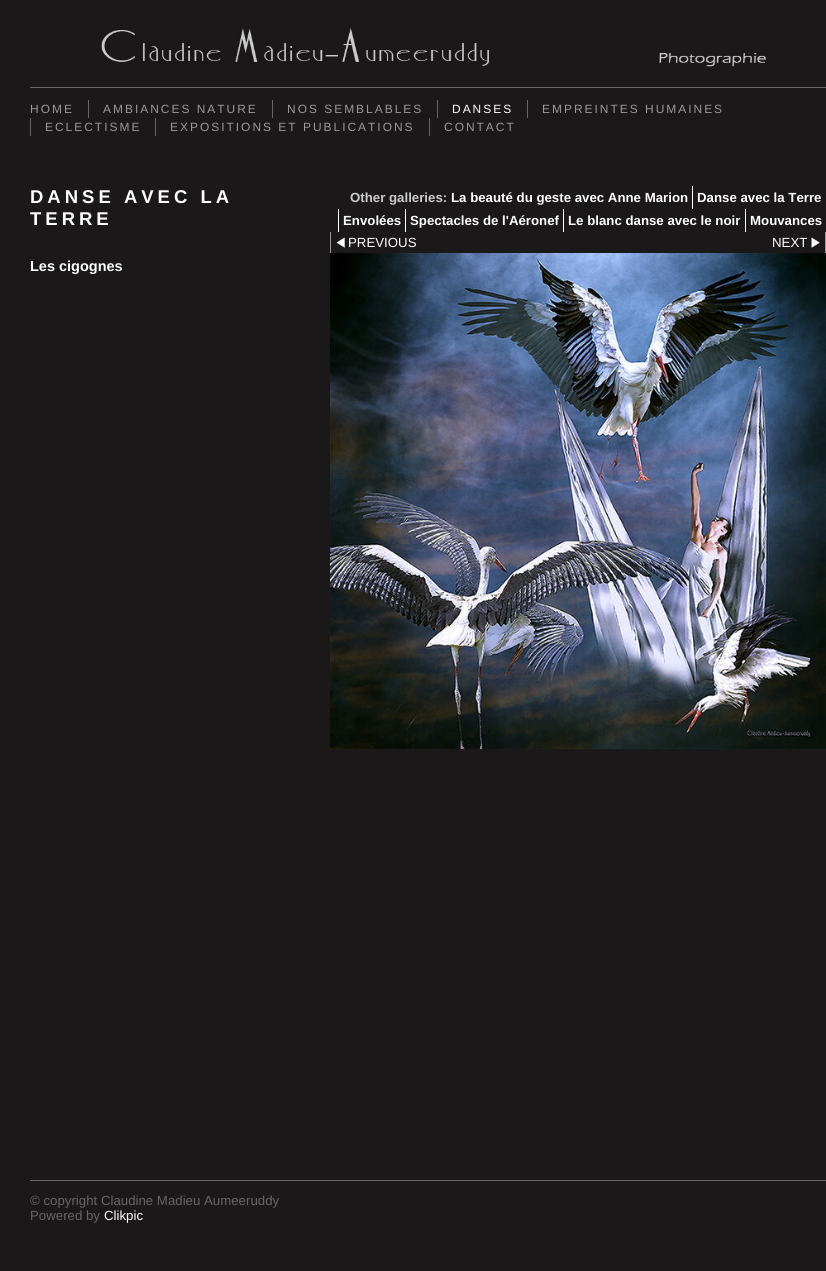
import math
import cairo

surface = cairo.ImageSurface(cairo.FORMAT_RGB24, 826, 1271)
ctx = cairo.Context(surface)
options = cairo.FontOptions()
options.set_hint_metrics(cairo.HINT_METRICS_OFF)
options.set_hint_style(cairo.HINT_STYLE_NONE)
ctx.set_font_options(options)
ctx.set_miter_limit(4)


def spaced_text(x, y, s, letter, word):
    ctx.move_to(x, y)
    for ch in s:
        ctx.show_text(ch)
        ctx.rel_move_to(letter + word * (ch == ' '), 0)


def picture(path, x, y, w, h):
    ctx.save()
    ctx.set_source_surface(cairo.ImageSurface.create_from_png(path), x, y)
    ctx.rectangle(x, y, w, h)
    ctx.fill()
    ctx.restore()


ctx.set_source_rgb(0.102, 0.094, 0.094)
ctx.paint()
ctx.set_source_rgb(0.4, 0.4, 0.4)
ctx.rectangle(30, 87, 796, 1)
ctx.fill()
picture("img1.png", 101, 28, 665, 39)
ctx.select_font_face("Liberation Sans")
ctx.set_font_size(11.95)
ctx.set_source_rgb(0.6, 0.6, 0.6)
spaced_text(30, 113, "HOME", 2, 0)
ctx.set_source_rgb(0.4, 0.4, 0.4)
ctx.rectangle(88, 100, 1, 18)
ctx.fill()
ctx.set_source_rgb(0.6, 0.6, 0.6)
spaced_text(103, 113, "AMBIANCES NATURE", 2, 0)
ctx.set_source_rgb(0.4, 0.4, 0.4)
ctx.rectangle(272, 100, 1, 18)
ctx.fill()
ctx.set_source_rgb(0.6, 0.6, 0.6)
spaced_text(287, 113, "NOS SEMBLABLES", 2, 0)
ctx.set_source_rgb(0.4, 0.4, 0.4)
ctx.rectangle(437, 100, 1, 18)
ctx.fill()
ctx.set_source_rgb(1, 1, 1)
spaced_text(452, 113, "DANSES", 2, 0)
ctx.set_source_rgb(0.4, 0.4, 0.4)
ctx.rectangle(527, 100, 1, 18)
ctx.fill()
ctx.set_source_rgb(0.6, 0.6, 0.6)
spaced_text(542, 113, "EMPREINTES HUMAINES", 2, 0)
ctx.set_source_rgb(0.4, 0.4, 0.4)
ctx.rectangle(30, 118, 1, 18)
ctx.fill()
ctx.set_source_rgb(0.6, 0.6, 0.6)
spaced_text(45, 131, "ECLECTISME", 2, 0)
ctx.set_source_rgb(0.4, 0.4, 0.4)
ctx.rectangle(155, 118, 1, 18)
ctx.fill()
ctx.set_source_rgb(0.6, 0.6, 0.6)
spaced_text(170, 131, "EXPOSITIONS ET PUBLICATIONS", 2, 0)
ctx.set_source_rgb(0.4, 0.4, 0.4)
ctx.rectangle(429, 118, 1, 18)
ctx.fill()
ctx.set_source_rgb(0.6, 0.6, 0.6)
spaced_text(444, 131, "CONTACT", 2, 0)
ctx.select_font_face("Liberation Sans", cairo.FONT_SLANT_NORMAL, cairo.FONT_WEIGHT_BOLD)
ctx.set_font_size(18.5)
ctx.set_source_rgb(1, 1, 1)
spaced_text(30, 203, "DANSE AVEC LA", 4, 0)
spaced_text(30, 225, "TERRE", 4, 0)
ctx.set_font_size(14.5)
ctx.move_to(30, 271)
ctx.show_text("Les cigognes")
ctx.set_font_size(13.25)
ctx.set_source_rgb(0.8, 0.8, 0.8)
ctx.move_to(350, 202)
ctx.show_text("Other galleries:")
ctx.set_source_rgb(1, 1, 1)
ctx.move_to(451, 202)
ctx.show_text("La beauté du geste avec Anne Marion")
ctx.rectangle(692, 186, 1, 23)
ctx.fill()
ctx.move_to(697, 202)
ctx.show_text("Danse avec la Terre")
ctx.rectangle(338, 209, 1, 23)
ctx.fill()
ctx.move_to(343, 225)
ctx.show_text("Envolées")
ctx.rectangle(405, 209, 1, 23)
ctx.fill()
ctx.move_to(410, 225)
ctx.show_text("Spectacles de l'Aéronef")
ctx.rectangle(563, 209, 1, 23)
ctx.fill()
ctx.move_to(568, 225)
ctx.show_text("Le blanc danse avec le noir")
ctx.rectangle(745, 209, 1, 23)
ctx.fill()
ctx.move_to(750, 225)
ctx.show_text("Mouvances")
ctx.set_source_rgb(0.6, 0.6, 0.6)
ctx.rectangle(330, 232, 1, 21)
ctx.fill()
picture("img2.png", 336, 237, 9, 11)
ctx.select_font_face("Liberation Sans")
ctx.set_source_rgb(1, 1, 1)
ctx.move_to(348, 247)
ctx.show_text("PREVIOUS")
ctx.set_source_rgb(0.6, 0.6, 0.6)
ctx.rectangle(825, 232, 1, 21)
ctx.fill()
ctx.set_source_rgb(1, 1, 1)
ctx.move_to(772, 247)
ctx.show_text("NEXT")
picture("img3.png", 811, 237, 9, 11)
picture("img4.png", 330, 253, 496, 496)
ctx.set_source_rgb(0.4, 0.4, 0.4)
ctx.rectangle(30, 1180, 796, 1)
ctx.fill()
ctx.move_to(30, 1205)
ctx.show_text("© copyright Claudine Madieu Aumeeruddy")
ctx.move_to(30, 1220)
ctx.show_text("Powered by")
ctx.set_source_rgb(1, 1, 1)
ctx.move_to(104, 1220)
ctx.show_text("Clikpic")
surface.write_to_png("page.png")
